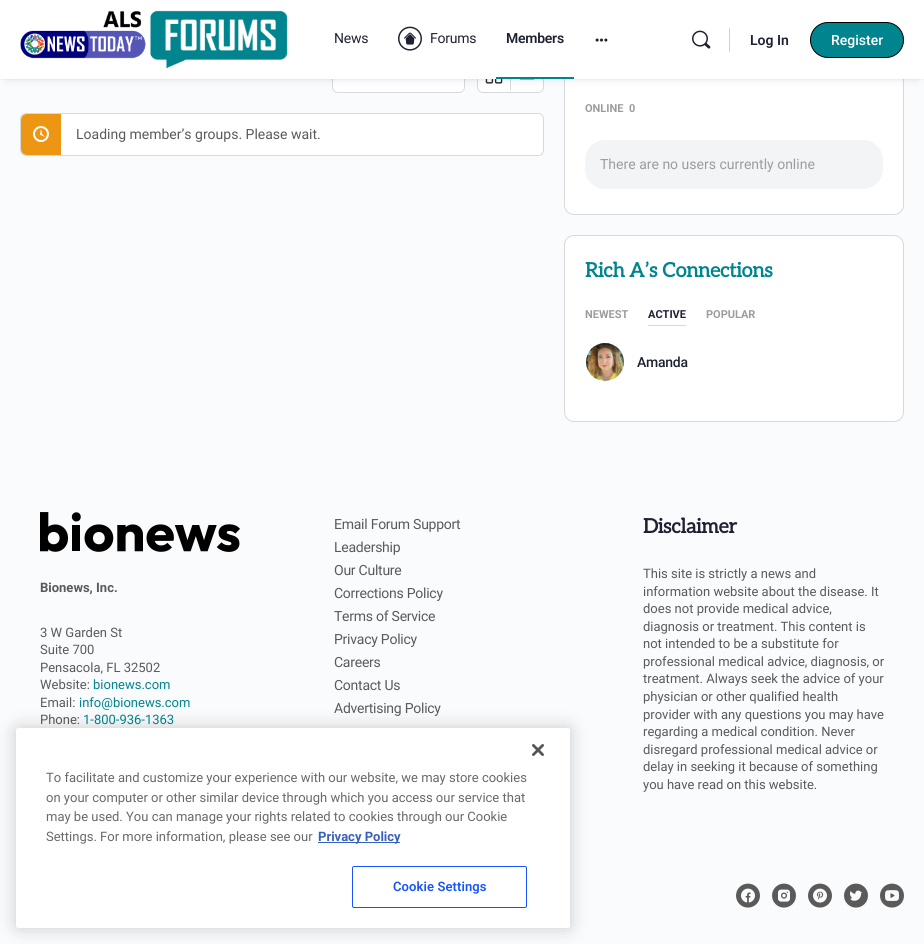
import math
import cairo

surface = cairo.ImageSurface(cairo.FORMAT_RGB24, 924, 944)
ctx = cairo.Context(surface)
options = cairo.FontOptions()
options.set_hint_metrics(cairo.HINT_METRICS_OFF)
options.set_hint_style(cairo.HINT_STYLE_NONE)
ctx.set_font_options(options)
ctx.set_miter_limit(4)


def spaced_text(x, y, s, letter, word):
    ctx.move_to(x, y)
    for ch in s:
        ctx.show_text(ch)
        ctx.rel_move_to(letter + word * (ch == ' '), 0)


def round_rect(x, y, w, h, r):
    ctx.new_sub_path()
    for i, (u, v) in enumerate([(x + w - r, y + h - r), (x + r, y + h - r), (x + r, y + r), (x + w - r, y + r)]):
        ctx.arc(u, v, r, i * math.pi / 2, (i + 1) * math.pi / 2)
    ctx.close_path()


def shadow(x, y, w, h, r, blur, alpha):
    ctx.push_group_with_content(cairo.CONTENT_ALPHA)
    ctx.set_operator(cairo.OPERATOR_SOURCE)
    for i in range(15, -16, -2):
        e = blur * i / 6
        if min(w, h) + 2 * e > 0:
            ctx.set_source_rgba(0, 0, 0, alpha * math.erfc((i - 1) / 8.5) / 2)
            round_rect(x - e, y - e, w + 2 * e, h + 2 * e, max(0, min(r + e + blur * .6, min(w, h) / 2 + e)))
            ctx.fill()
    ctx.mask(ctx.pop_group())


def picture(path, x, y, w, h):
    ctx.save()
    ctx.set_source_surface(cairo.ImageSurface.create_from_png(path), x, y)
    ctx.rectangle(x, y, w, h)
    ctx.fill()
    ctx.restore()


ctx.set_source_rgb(0.98, 0.984, 0.992)
ctx.paint()
ctx.set_source_rgb(1, 1, 1)
round_rect(332.5, 57.5, 132, 35, 5.5)
ctx.fill_preserve()
ctx.set_source_rgb(0.839, 0.851, 0.867)
ctx.set_line_width(1)
ctx.stroke()
ctx.set_source_rgb(1, 1, 1)
round_rect(333, 58, 131, 34, 6)
ctx.fill()
round_rect(477.5, 57.5, 66, 35, 5.5)
ctx.fill_preserve()
ctx.set_source_rgb(0.839, 0.851, 0.867)
ctx.stroke()
ctx.rectangle(510, 79, 1, 11)
ctx.fill()
picture("img5.png", 485, 79, 18, 5)
picture("img6.png", 519, 79, 16, 1)
ctx.set_source_rgb(1, 1, 1)
round_rect(564.5, 27.5, 339, 187, 9.5)
ctx.fill_preserve()
ctx.set_source_rgb(0.839, 0.851, 0.867)
ctx.stroke()
ctx.set_source_rgb(0.255, 0.278, 0.424)
shadow(7, 12, 910, 65, 0, 5, 0.25)
ctx.set_source_rgba(0.545, 0.553, 0.616, 0.05)
ctx.rectangle(0, 79, 924, 1)
ctx.fill()
ctx.set_source_rgb(1, 1, 1)
ctx.rectangle(0, 0, 924, 79)
ctx.fill()
picture("img1.png", 20, 10, 268, 59)
ctx.select_font_face("Roboto")
ctx.set_font_size(14)
ctx.set_source_rgb(0.118, 0.129, 0.196)
spaced_text(334, 43, "News", -0.25, 0)
picture("img2.png", 398, 26, 24, 25)
spaced_text(430, 43, "Forums", -0.25, 0)
ctx.set_source_rgb(0, 0.518, 0.557)
ctx.rectangle(496, 77, 78, 2)
ctx.fill()
ctx.select_font_face("Roboto SemiBold")
ctx.set_source_rgb(0.118, 0.129, 0.196)
spaced_text(506, 43, "Members", -0.25, 0)
picture("img3.png", 595, 38, 13, 4)
picture("img4.png", 692, 30, 19, 19)
ctx.set_source_rgb(0.824, 0.827, 0.839)
ctx.rectangle(729, 28, 1, 24)
ctx.fill()
ctx.set_source_rgb(0.118, 0.129, 0.196)
ctx.move_to(750, 45)
ctx.show_text("Log In")
ctx.set_source_rgb(0, 0.518, 0.557)
round_rect(810.5, 22.5, 93, 35, 17.5)
ctx.fill_preserve()
ctx.set_source_rgb(0, 0, 0)
ctx.stroke()
ctx.select_font_face("Roboto Medium")
ctx.set_source_rgb(1, 1, 1)
ctx.move_to(831, 45)
ctx.show_text("Register")
round_rect(20.5, 113.5, 523, 42, 5.5)
ctx.fill_preserve()
ctx.set_source_rgb(0.839, 0.851, 0.867)
ctx.stroke()
ctx.set_source_rgb(0.929, 0.588, 0.082)
ctx.new_path()
ctx.move_to(27, 114)
ctx.line_to(61, 114)
ctx.line_to(61, 155)
ctx.line_to(27, 155)
ctx.curve_to(23.5, 155, 21, 152.5, 21, 149)
ctx.line_to(21, 120)
ctx.curve_to(21, 116.5, 23.5, 114, 27, 114)
ctx.close_path()
ctx.fill()
picture("img7.png", 33, 126, 16, 16)
ctx.select_font_face("Roboto")
ctx.set_source_rgb(0.353, 0.353, 0.353)
ctx.move_to(76, 139)
ctx.show_text("Loading member’s groups. Please wait.")
ctx.select_font_face("Roboto", cairo.FONT_SLANT_NORMAL, cairo.FONT_WEIGHT_BOLD)
ctx.set_font_size(11)
ctx.set_source_rgb(0.608, 0.612, 0.624)
ctx.move_to(585, 112)
ctx.show_text("ONLINE")
ctx.move_to(629, 112)
ctx.show_text("0")
ctx.set_source_rgb(0.949, 0.957, 0.961)
round_rect(585, 140, 298, 49, 20)
ctx.fill()
ctx.select_font_face("Roboto")
ctx.set_font_size(14)
ctx.set_source_rgb(0.608, 0.612, 0.624)
ctx.move_to(600, 169)
ctx.show_text("There are no users currently online")
ctx.set_source_rgb(1, 1, 1)
round_rect(564.5, 235.5, 339, 186, 9.5)
ctx.fill_preserve()
ctx.set_source_rgb(0.839, 0.851, 0.867)
ctx.stroke()
ctx.select_font_face("Aleo", cairo.FONT_SLANT_NORMAL, cairo.FONT_WEIGHT_BOLD)
ctx.set_font_size(20)
ctx.set_source_rgb(0, 0.518, 0.557)
spaced_text(585, 277, "Rich A’s Connections", -0.25, 0)
ctx.select_font_face("Roboto", cairo.FONT_SLANT_NORMAL, cairo.FONT_WEIGHT_BOLD)
ctx.set_font_size(11)
ctx.set_source_rgb(0.608, 0.612, 0.624)
ctx.move_to(585, 318)
ctx.show_text("NEWEST")
ctx.set_source_rgb(0.839, 0.851, 0.867)
ctx.rectangle(648, 325, 38, 1)
ctx.fill()
ctx.set_source_rgb(0.118, 0.129, 0.196)
ctx.move_to(648, 318)
ctx.show_text("ACTIVE")
ctx.set_source_rgb(0.608, 0.612, 0.624)
ctx.move_to(706, 318)
ctx.show_text("POPULAR")
picture("img8.png", 586, 343, 38, 38)
ctx.select_font_face("Roboto Medium")
ctx.set_font_size(14)
ctx.set_source_rgb(0.118, 0.129, 0.196)
spaced_text(637, 367, "Amanda", -0.25, 0)
picture("img9.png", 40, 512, 200, 40)
ctx.select_font_face("Roboto", cairo.FONT_SLANT_NORMAL, cairo.FONT_WEIGHT_BOLD)
ctx.set_font_size(13)
ctx.set_source_rgb(0.353, 0.353, 0.353)
ctx.move_to(40, 592)
ctx.show_text("Bionews, Inc.")
ctx.select_font_face("Roboto")
ctx.move_to(40, 637)
ctx.show_text("3 W Garden St")
ctx.move_to(40, 654)
ctx.show_text("Suite 700")
ctx.move_to(40, 672)
ctx.show_text("Pensacola, FL 32502")
ctx.move_to(40, 689)
ctx.show_text("Website:")
ctx.set_source_rgb(0, 0.518, 0.557)
ctx.move_to(93, 689)
ctx.show_text("bionews.com")
ctx.set_source_rgb(0.353, 0.353, 0.353)
ctx.move_to(40, 707)
ctx.show_text("Email:")
ctx.set_source_rgb(0, 0.518, 0.557)
ctx.move_to(79, 707)
ctx.show_text("info@bionews.com")
ctx.set_source_rgb(0.353, 0.353, 0.353)
ctx.move_to(40, 724)
ctx.show_text("Phone:")
ctx.set_source_rgb(0, 0.518, 0.557)
ctx.move_to(83, 724)
ctx.show_text("1-800-936-1363")
ctx.set_font_size(14)
ctx.set_source_rgb(0.353, 0.353, 0.353)
spaced_text(334, 529, "Email Forum Support", -0.25, 0)
spaced_text(334, 552, "Leadership", -0.25, 0)
spaced_text(334, 575, "Our Culture", -0.25, 0)
spaced_text(334, 598, "Corrections Policy", -0.25, 0)
spaced_text(334, 621, "Terms of Service", -0.25, 0)
spaced_text(334, 644, "Privacy Policy", -0.25, 0)
spaced_text(334, 667, "Careers", -0.25, 0)
spaced_text(334, 690, "Contact Us", -0.25, 0)
spaced_text(334, 713, "Advertising Policy", -0.25, 0)
ctx.select_font_face("Aleo", cairo.FONT_SLANT_NORMAL, cairo.FONT_WEIGHT_BOLD)
ctx.set_font_size(20)
ctx.set_source_rgb(0.118, 0.129, 0.196)
spaced_text(643, 533, "Disclaimer", -0.25, 0)
ctx.select_font_face("Roboto")
ctx.set_font_size(13)
ctx.set_source_rgb(0.353, 0.353, 0.353)
ctx.move_to(643, 578)
ctx.show_text("This site is strictly a news and")
ctx.move_to(643, 596)
ctx.show_text("information website about the disease. It")
ctx.move_to(643, 613)
ctx.show_text("does not provide medical advice,")
ctx.move_to(643, 631)
ctx.show_text("diagnosis or treatment. This content is")
ctx.move_to(643, 648)
ctx.show_text("not intended to be a substitute for")
ctx.move_to(643, 666)
ctx.show_text("professional medical advice, diagnosis, or")
ctx.move_to(643, 683)
ctx.show_text("treatment. Always seek the advice of your")
ctx.move_to(643, 701)
ctx.show_text("physician or other qualified health")
ctx.move_to(643, 719)
ctx.show_text("provider with any questions you may have")
ctx.move_to(643, 736)
ctx.show_text("regarding a medical condition. Never")
ctx.move_to(643, 754)
ctx.show_text("disregard professional medical advice or")
ctx.move_to(643, 771)
ctx.show_text("delay in seeking it because of something")
ctx.move_to(643, 789)
ctx.show_text("you have read on this website.")
picture("img10.png", 736, 883, 24, 25)
picture("img11.png", 772, 883, 24, 25)
picture("img12.png", 808, 883, 24, 25)
picture("img13.png", 844, 883, 24, 25)
picture("img14.png", 880, 883, 24, 25)
ctx.set_source_rgb(0, 0, 0)
shadow(16, 728, 554, 200, 2.5, 9, 0.2)
ctx.set_source_rgb(1, 1, 1)
round_rect(16, 728, 554, 200, 2.5)
ctx.fill()
picture("img15.png", 532, 744, 12, 12)
ctx.set_source_rgb(0.412, 0.412, 0.412)
ctx.move_to(46, 782)
ctx.show_text("To facilitate and customize your experience with our website, we may store cookies")
ctx.move_to(46, 802)
ctx.show_text("on your computer or other similar device through which you access our service that")
ctx.move_to(46, 821)
ctx.show_text("may be used. You can manage your rights related to cookies through our Cookie")
ctx.move_to(46, 841)
ctx.show_text("Settings. For more information, please see our")
ctx.set_source_rgb(0.22, 0.376, 0.745)
ctx.rectangle(318, 842, 82, 1)
ctx.fill()
ctx.select_font_face("Roboto", cairo.FONT_SLANT_NORMAL, cairo.FONT_WEIGHT_BOLD)
ctx.move_to(318, 841)
ctx.show_text("Privacy Policy")
round_rect(352.5, 866.5, 174, 41, 1.5)
ctx.set_source_rgb(0.09, 0.329, 1)
ctx.stroke()
ctx.select_font_face("Roboto SemiBold")
spaced_text(393, 891, "Cookie Settings", 0.1, 0)
surface.write_to_png("page.png")
